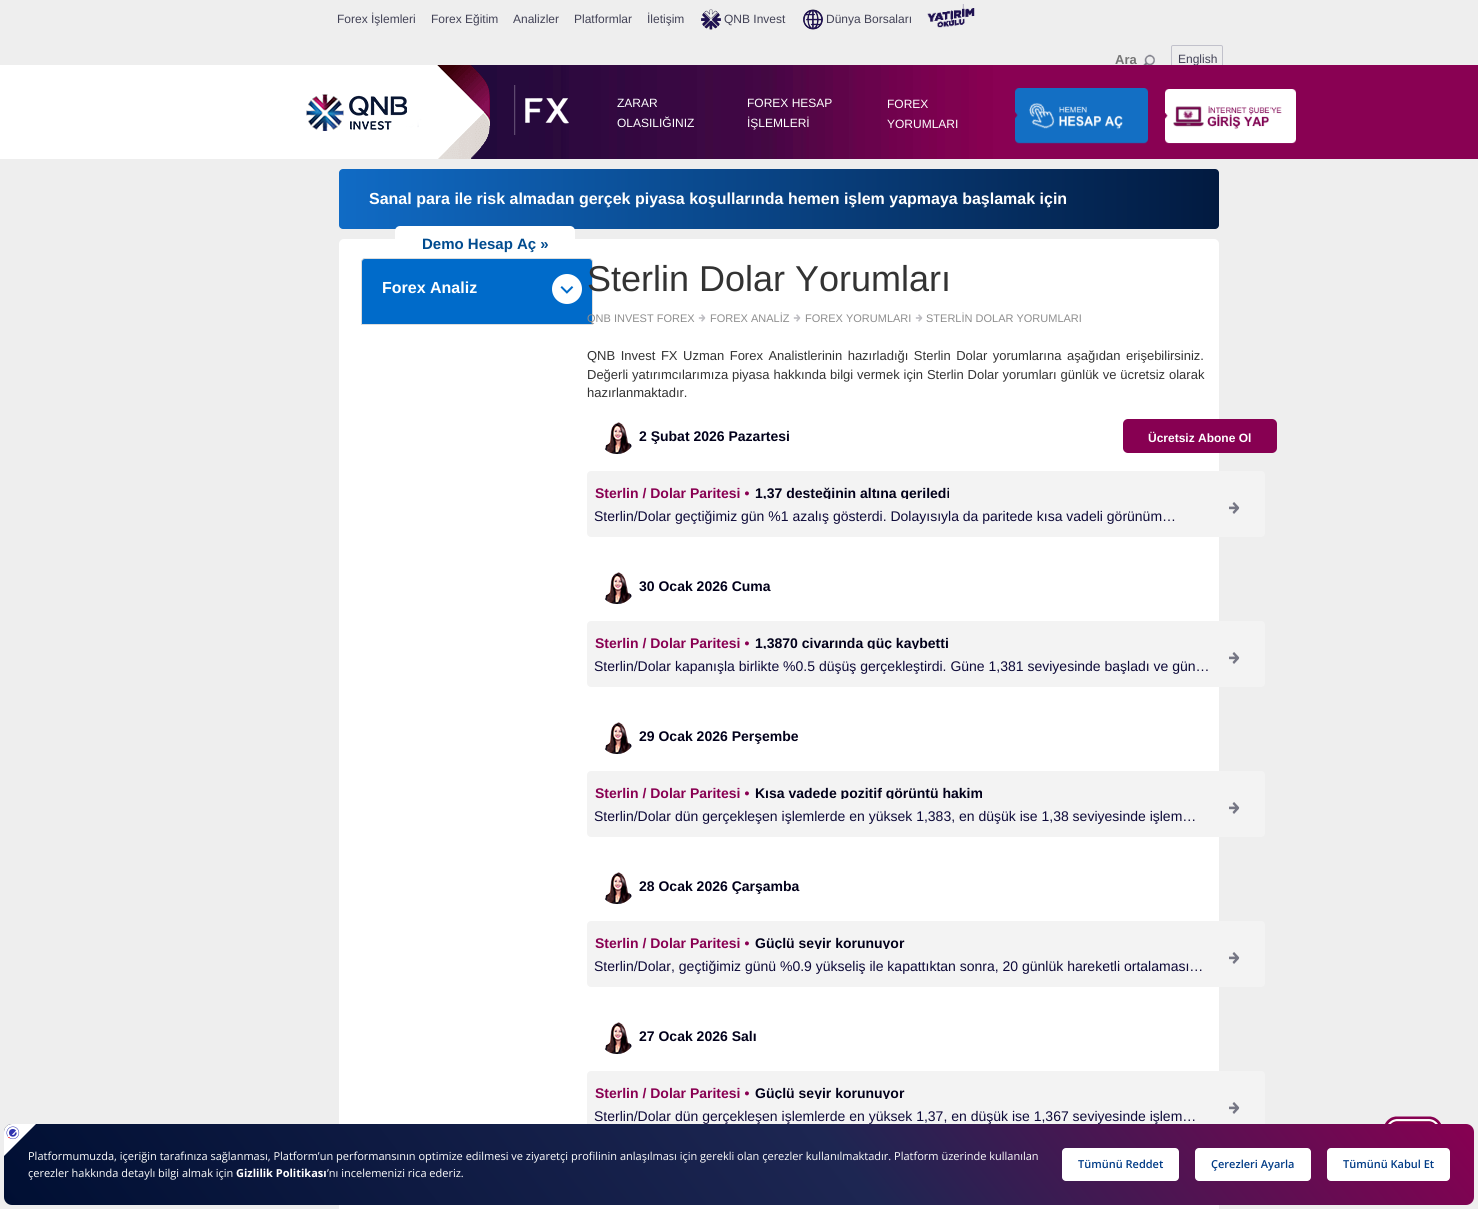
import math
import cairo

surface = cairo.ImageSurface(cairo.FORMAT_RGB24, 1478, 1209)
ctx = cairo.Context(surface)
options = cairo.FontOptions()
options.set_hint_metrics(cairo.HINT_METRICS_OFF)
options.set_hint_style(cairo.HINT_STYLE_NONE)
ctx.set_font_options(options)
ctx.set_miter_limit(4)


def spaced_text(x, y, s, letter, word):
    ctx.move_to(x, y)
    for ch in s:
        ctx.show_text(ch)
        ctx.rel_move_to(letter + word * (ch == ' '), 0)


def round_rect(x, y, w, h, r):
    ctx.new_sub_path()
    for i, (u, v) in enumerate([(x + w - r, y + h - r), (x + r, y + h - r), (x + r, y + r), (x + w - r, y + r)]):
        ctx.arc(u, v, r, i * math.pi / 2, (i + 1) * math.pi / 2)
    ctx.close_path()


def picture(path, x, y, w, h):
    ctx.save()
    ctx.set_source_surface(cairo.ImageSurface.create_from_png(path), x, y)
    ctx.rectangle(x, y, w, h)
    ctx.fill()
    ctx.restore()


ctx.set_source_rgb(0.933, 0.933, 0.933)
ctx.paint()
ctx.select_font_face("Liberation Sans")
ctx.set_font_size(12)
ctx.set_source_rgb(0.259, 0.259, 0.337)
ctx.move_to(337, 23)
ctx.show_text("Forex İşlemleri")
ctx.move_to(431, 23)
ctx.show_text("Forex Eğitim")
ctx.move_to(513, 23)
ctx.show_text("Analizler")
ctx.move_to(574, 23)
ctx.show_text("Platformlar")
ctx.move_to(647, 23)
ctx.show_text("İletişim")
picture("img1.png", 701, 9, 20, 21)
ctx.move_to(724, 23)
ctx.show_text("QNB Invest")
picture("img2.png", 803, 9, 20, 21)
ctx.move_to(826, 23)
ctx.show_text("Dünya Borsaları")
picture("img3.png", 927, 4, 48, 24)
ctx.select_font_face("Liberation Sans", cairo.FONT_SLANT_NORMAL, cairo.FONT_WEIGHT_BOLD)
ctx.set_font_size(13)
ctx.set_source_rgb(0.459, 0.459, 0.459)
ctx.move_to(1115, 64)
ctx.show_text("Ara")
picture("img4.png", 1143, 54, 12, 11)
round_rect(1171.5, 45.5, 51, 27, 1.5)
ctx.set_source_rgb(0.757, 0.757, 0.796)
ctx.set_line_width(1)
ctx.stroke()
ctx.select_font_face("Liberation Sans")
ctx.set_font_size(12)
ctx.set_source_rgb(0.259, 0.259, 0.337)
ctx.move_to(1178, 63)
ctx.show_text("English")
ctx.set_source_rgb(1, 1, 1)
ctx.rectangle(0, 65, 289, 94)
ctx.fill()
picture("img5.png", 471, 65, 1007, 94)
picture("img6.png", 289, 65, 201, 94)
picture("img7.png", 514, 85, 55, 50)
ctx.move_to(617, 107)
ctx.show_text("ZARAR")
ctx.move_to(617, 127)
ctx.show_text("OLASILIĞINIZ")
ctx.move_to(747, 107)
ctx.show_text("FOREX HESAP")
ctx.move_to(747, 127)
ctx.show_text("İŞLEMLERİ")
ctx.move_to(887, 108)
ctx.show_text("FOREX")
ctx.move_to(887, 128)
ctx.show_text("YORUMLARI")
picture("img8.png", 1015, 88, 133, 56)
picture("img9.png", 1165, 89, 131, 55)
gradient = cairo.LinearGradient(339, 199, 1219, 199)
gradient.add_color_stop_rgba(0, 0.063, 0.42, 0.773, 1)
gradient.add_color_stop_rgba(1, 0.008, 0.102, 0.251, 1)
ctx.set_source(gradient)
round_rect(339, 169, 880, 60, 4)
ctx.fill()
ctx.select_font_face("Liberation Sans", cairo.FONT_SLANT_NORMAL, cairo.FONT_WEIGHT_BOLD)
ctx.set_font_size(16)
ctx.set_source_rgb(1, 1, 1)
ctx.move_to(369, 204)
ctx.show_text("Sanal para ile risk almadan gerçek piyasa koşullarında hemen işlem yapmaya başlamak için")
round_rect(339, 239, 880, 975, 5)
ctx.fill()
round_rect(395, 226, 180, 34, 5)
ctx.fill()
ctx.set_font_size(15)
ctx.set_source_rgb(0, 0.294, 0.561)
ctx.move_to(422, 249)
ctx.show_text("Demo Hesap Aç »")
ctx.set_source_rgb(0, 0.42, 0.792)
ctx.new_path()
ctx.move_to(365, 258.5)
ctx.line_to(589, 258.5)
ctx.curve_to(591, 258.5, 592.5, 260, 592.5, 262)
ctx.line_to(592.5, 324.5)
ctx.line_to(361.5, 324.5)
ctx.line_to(361.5, 262)
ctx.curve_to(361.5, 260, 363, 258.5, 365, 258.5)
ctx.close_path()
ctx.fill_preserve()
ctx.set_source_rgb(0.867, 0.867, 0.867)
ctx.stroke()
ctx.set_font_size(16)
ctx.set_source_rgb(1, 1, 1)
ctx.move_to(382, 293)
ctx.show_text("Forex Analiz")
picture("img10.png", 552, 274, 30, 30)
ctx.select_font_face("Liberation Sans")
ctx.set_font_size(36)
ctx.set_source_rgb(0.2, 0.2, 0.2)
ctx.move_to(587, 291)
ctx.show_text("Sterlin Dolar Yorumları")
ctx.set_font_size(11)
ctx.set_source_rgb(0.557, 0.557, 0.557)
ctx.move_to(587, 322)
ctx.show_text("QNB INVEST FOREX")
picture("img11.png", 698, 314, 8, 8)
ctx.move_to(710, 322)
ctx.show_text("FOREX ANALİZ")
picture("img11.png", 793, 314, 8, 8)
ctx.move_to(805, 322)
ctx.show_text("FOREX YORUMLARI")
picture("img11.png", 915, 314, 8, 8)
ctx.move_to(926, 322)
ctx.show_text("STERLİN DOLAR YORUMLARI")
ctx.set_font_size(13)
ctx.set_source_rgb(0.2, 0.2, 0.2)
spaced_text(587, 360, "QNB Invest FX Uzman Forex Analistlerinin hazırladığı Sterlin Dolar yorumlarına aşağıdan erişebilirsiniz.", 0, 1.9)
spaced_text(587, 379, "Değerli yatırımcılarımıza piyasa hakkında bilgi vermek için Sterlin Dolar yorumları günlük ve ücretsiz olarak", 0, 0.25)
ctx.move_to(587, 397)
ctx.show_text("hazırlanmaktadır.")
picture("img12.png", 604, 422, 28, 32)
ctx.select_font_face("Liberation Sans", cairo.FONT_SLANT_NORMAL, cairo.FONT_WEIGHT_BOLD)
ctx.set_font_size(14)
ctx.set_source_rgb(0.004, 0, 0.102)
ctx.move_to(639, 441)
ctx.show_text("2 Şubat 2026 Pazartesi")
ctx.set_source_rgb(0.953, 0.953, 0.953)
round_rect(587, 471, 678, 66, 4)
ctx.fill()
ctx.set_source_rgb(0.537, 0, 0.322)
ctx.move_to(595, 498)
ctx.show_text("Sterlin / Dolar Paritesi •")
ctx.save()
ctx.rectangle(755, 471, 196, 28)
ctx.clip()
ctx.set_source_rgb(0.004, 0, 0.102)
ctx.move_to(755, 498)
ctx.show_text("1,37 desteğinin altına geriledi")
ctx.restore()
picture("img13.png", 1229, 502, 11, 12)
ctx.select_font_face("Liberation Sans")
ctx.set_source_rgb(0.051, 0.039, 0.22)
ctx.move_to(594, 521)
ctx.show_text("Sterlin/Dolar geçtiğimiz gün %1 azalış gösterdi. Dolayısıyla da paritede kısa vadeli görünüm…")
picture("img12.png", 604, 572, 28, 32)
ctx.select_font_face("Liberation Sans", cairo.FONT_SLANT_NORMAL, cairo.FONT_WEIGHT_BOLD)
ctx.set_source_rgb(0.004, 0, 0.102)
ctx.move_to(639, 591)
ctx.show_text("30 Ocak 2026 Cuma")
ctx.set_source_rgb(0.953, 0.953, 0.953)
round_rect(587, 621, 678, 66, 4)
ctx.fill()
ctx.set_source_rgb(0.537, 0, 0.322)
ctx.move_to(595, 648)
ctx.show_text("Sterlin / Dolar Paritesi •")
ctx.save()
ctx.rectangle(755, 621, 194, 28)
ctx.clip()
ctx.set_source_rgb(0.004, 0, 0.102)
ctx.move_to(755, 648)
ctx.show_text("1,3870 civarında güç kaybetti")
ctx.restore()
picture("img13.png", 1229, 652, 11, 12)
ctx.select_font_face("Liberation Sans")
ctx.set_source_rgb(0.051, 0.039, 0.22)
ctx.move_to(594, 671)
ctx.show_text("Sterlin/Dolar kapanışla birlikte %0.5 düşüş gerçekleştirdi. Güne 1,381 seviyesinde başladı ve gün…")
picture("img12.png", 604, 722, 28, 32)
ctx.select_font_face("Liberation Sans", cairo.FONT_SLANT_NORMAL, cairo.FONT_WEIGHT_BOLD)
ctx.set_source_rgb(0.004, 0, 0.102)
ctx.move_to(639, 741)
ctx.show_text("29 Ocak 2026 Perşembe")
ctx.set_source_rgb(0.953, 0.953, 0.953)
round_rect(587, 771, 678, 66, 4)
ctx.fill()
ctx.set_source_rgb(0.537, 0, 0.322)
ctx.move_to(595, 798)
ctx.show_text("Sterlin / Dolar Paritesi •")
ctx.save()
ctx.rectangle(755, 771, 228, 28)
ctx.clip()
ctx.set_source_rgb(0.004, 0, 0.102)
ctx.move_to(755, 798)
ctx.show_text("Kısa vadede pozitif görüntü hakim")
ctx.restore()
picture("img13.png", 1229, 802, 11, 12)
ctx.select_font_face("Liberation Sans")
ctx.set_source_rgb(0.051, 0.039, 0.22)
ctx.move_to(594, 821)
ctx.show_text("Sterlin/Dolar dün gerçekleşen işlemlerde en yüksek 1,383, en düşük ise 1,38 seviyesinde işlem…")
picture("img12.png", 604, 872, 28, 32)
ctx.select_font_face("Liberation Sans", cairo.FONT_SLANT_NORMAL, cairo.FONT_WEIGHT_BOLD)
ctx.set_source_rgb(0.004, 0, 0.102)
ctx.move_to(639, 891)
ctx.show_text("28 Ocak 2026 Çarşamba")
ctx.set_source_rgb(0.953, 0.953, 0.953)
round_rect(587, 921, 678, 66, 4)
ctx.fill()
ctx.set_source_rgb(0.537, 0, 0.322)
ctx.move_to(595, 948)
ctx.show_text("Sterlin / Dolar Paritesi •")
ctx.save()
ctx.rectangle(755, 921, 150, 28)
ctx.clip()
ctx.set_source_rgb(0.004, 0, 0.102)
ctx.move_to(755, 948)
ctx.show_text("Güçlü seyir korunuyor")
ctx.restore()
picture("img13.png", 1229, 952, 11, 12)
ctx.select_font_face("Liberation Sans")
ctx.set_source_rgb(0.051, 0.039, 0.22)
ctx.move_to(594, 971)
ctx.show_text("Sterlin/Dolar, geçtiğimiz günü %0.9 yükseliş ile kapattıktan sonra, 20 günlük hareketli ortalaması…")
picture("img12.png", 604, 1022, 28, 32)
ctx.select_font_face("Liberation Sans", cairo.FONT_SLANT_NORMAL, cairo.FONT_WEIGHT_BOLD)
ctx.set_source_rgb(0.004, 0, 0.102)
ctx.move_to(639, 1041)
ctx.show_text("27 Ocak 2026 Salı")
ctx.set_source_rgb(0.953, 0.953, 0.953)
round_rect(587, 1071, 678, 66, 4)
ctx.fill()
ctx.set_source_rgb(0.537, 0, 0.322)
ctx.move_to(595, 1098)
ctx.show_text("Sterlin / Dolar Paritesi •")
ctx.save()
ctx.rectangle(755, 1071, 150, 28)
ctx.clip()
ctx.set_source_rgb(0.004, 0, 0.102)
ctx.move_to(755, 1098)
ctx.show_text("Güçlü seyir korunuyor")
ctx.restore()
picture("img13.png", 1229, 1102, 11, 12)
ctx.select_font_face("Liberation Sans")
ctx.set_source_rgb(0.051, 0.039, 0.22)
ctx.move_to(594, 1121)
ctx.show_text("Sterlin/Dolar dün gerçekleşen işlemlerde en yüksek 1,37, en düşük ise 1,367 seviyesinde işlem…")
ctx.set_source_rgb(0.529, 0, 0.322)
round_rect(1123, 419, 154, 34, 5)
ctx.fill()
ctx.select_font_face("Liberation Sans", cairo.FONT_SLANT_NORMAL, cairo.FONT_WEIGHT_BOLD)
ctx.set_font_size(12)
ctx.set_source_rgb(1, 1, 1)
ctx.move_to(1148, 442)
ctx.show_text("Ücretsiz Abone Ol")
picture("img14.png", 1385, 1116, 56, 8)
gradient = cairo.LinearGradient(263, 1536, 1215, 793)
gradient.add_color_stop_rgba(0, 0, 0.059, 0.2, 1)
gradient.add_color_stop_rgba(0.57, 0.114, 0.149, 0.322, 1)
gradient.add_color_stop_rgba(1, 0.529, 0, 0.322, 1)
ctx.set_source(gradient)
round_rect(4, 1124, 1470, 81, 8)
ctx.fill()
ctx.set_source_rgb(1, 1, 1)
ctx.new_path()
ctx.move_to(12, 1124)
ctx.curve_to(7.5, 1124, 4, 1127.5, 4, 1132)
ctx.line_to(4, 1156)
ctx.line_to(36, 1124)
ctx.close_path()
ctx.fill()
picture("img15.png", 6, 1126, 14, 14)
ctx.select_font_face("Open Sans")
ctx.set_font_size(11)
ctx.move_to(28, 1160)
ctx.show_text("Platformumuzda, içeriğin tarafınıza sağlanması, Platform’un performansının optimize edilmesi ve ziyaretçi profilinin anlaşılması için gerekli olan çerezler kullanılmaktadır. Platform üzerinde kullanılan")
ctx.move_to(28, 1177)
ctx.show_text("çerezler hakkında detaylı bilgi almak için")
ctx.select_font_face("Open Sans", cairo.FONT_SLANT_NORMAL, cairo.FONT_WEIGHT_BOLD)
ctx.move_to(236, 1177)
ctx.show_text("Gizlilik Politikası")
ctx.select_font_face("Open Sans")
ctx.move_to(327, 1177)
ctx.show_text("’nı incelemenizi rica ederiz.")
round_rect(1062, 1148, 117, 33, 4)
ctx.fill()
ctx.select_font_face("Open Sans SemiBold")
ctx.set_source_rgb(0, 0.231, 0.525)
ctx.move_to(1078, 1168)
ctx.show_text("Tümünü Reddet")
ctx.set_source_rgb(1, 1, 1)
round_rect(1195, 1148, 116, 33, 4)
ctx.fill()
ctx.set_source_rgb(0, 0.231, 0.525)
ctx.move_to(1211, 1168)
ctx.show_text("Çerezleri Ayarla")
ctx.set_source_rgb(1, 1, 1)
round_rect(1327, 1148, 123, 33, 4)
ctx.fill()
ctx.set_source_rgb(0, 0.231, 0.525)
ctx.move_to(1343, 1168)
ctx.show_text("Tümünü Kabul Et")
surface.write_to_png("page.png")
